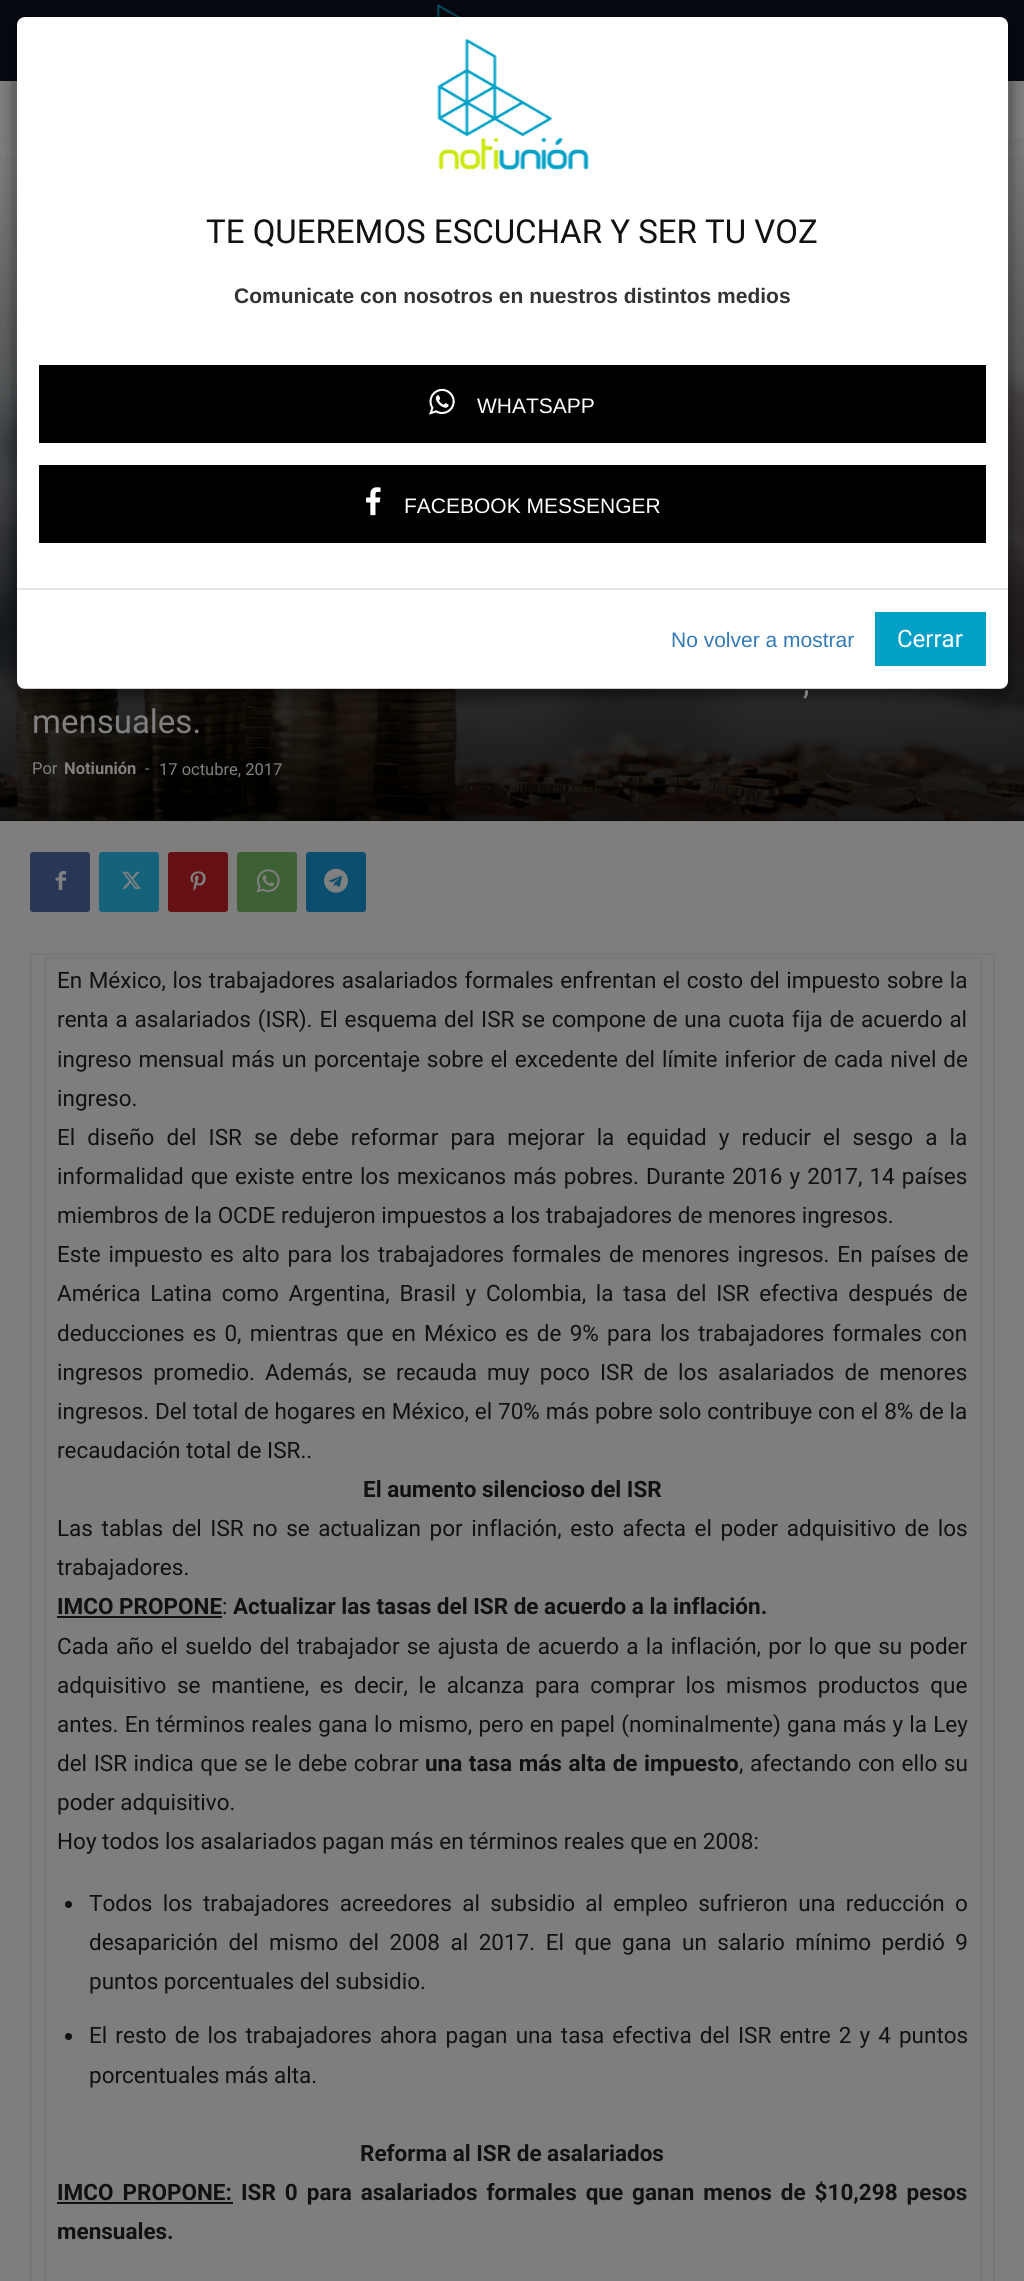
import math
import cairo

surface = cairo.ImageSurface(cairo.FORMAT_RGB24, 1024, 2281)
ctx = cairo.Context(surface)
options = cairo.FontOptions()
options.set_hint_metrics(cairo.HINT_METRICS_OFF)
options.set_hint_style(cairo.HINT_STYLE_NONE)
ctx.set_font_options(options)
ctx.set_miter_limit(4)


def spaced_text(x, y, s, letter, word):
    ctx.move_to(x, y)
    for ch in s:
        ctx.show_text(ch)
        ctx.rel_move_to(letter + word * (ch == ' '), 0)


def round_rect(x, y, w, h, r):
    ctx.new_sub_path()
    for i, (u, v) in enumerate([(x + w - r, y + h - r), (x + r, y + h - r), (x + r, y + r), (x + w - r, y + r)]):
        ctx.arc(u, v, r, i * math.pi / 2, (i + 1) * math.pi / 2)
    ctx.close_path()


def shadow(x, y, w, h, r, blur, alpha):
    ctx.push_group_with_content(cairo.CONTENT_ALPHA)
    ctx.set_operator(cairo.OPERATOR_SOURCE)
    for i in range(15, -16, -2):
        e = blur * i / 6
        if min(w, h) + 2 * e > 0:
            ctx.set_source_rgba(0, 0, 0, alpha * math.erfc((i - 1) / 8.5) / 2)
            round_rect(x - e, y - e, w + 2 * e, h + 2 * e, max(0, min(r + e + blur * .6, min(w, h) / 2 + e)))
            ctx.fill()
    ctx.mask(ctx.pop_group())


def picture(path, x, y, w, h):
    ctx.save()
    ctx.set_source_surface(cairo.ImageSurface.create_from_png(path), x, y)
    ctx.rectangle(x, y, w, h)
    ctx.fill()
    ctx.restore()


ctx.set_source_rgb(0.494, 0.494, 0.494)
ctx.paint()
ctx.set_source_rgb(0.027, 0.039, 0.067)
ctx.rectangle(0, 0, 1024, 81)
ctx.fill()
picture("img4.png", 437, 4, 23, 13)
ctx.set_source_rgb(0.133, 0.133, 0.133)
ctx.rectangle(0, 820, 1024, 1)
ctx.fill()
picture("img5.png", 0, 138, 1024, 683)
gradient = cairo.LinearGradient(512, 138, 512, 821)
gradient.add_color_stop_rgba(0, 0, 0, 0, 0)
gradient.add_color_stop_rgba(1, 0, 0, 0, 0.8)
ctx.set_source(gradient)
ctx.rectangle(0, 156, 1024, 665)
ctx.fill()
ctx.save()
ctx.set_fill_rule(cairo.FILL_RULE_EVEN_ODD)
ctx.new_path()
ctx.move_to(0, 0)
ctx.line_to(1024, 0)
ctx.line_to(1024, 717)
ctx.line_to(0, 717)
ctx.close_path()
ctx.move_to(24, 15)
ctx.line_to(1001, 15)
ctx.curve_to(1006, 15, 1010, 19, 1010, 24)
ctx.line_to(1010, 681)
ctx.curve_to(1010, 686, 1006, 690, 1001, 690)
ctx.line_to(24, 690)
ctx.curve_to(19, 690, 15, 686, 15, 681)
ctx.line_to(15, 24)
ctx.curve_to(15, 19, 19, 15, 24, 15)
ctx.close_path()
ctx.clip()
ctx.set_source_rgb(0, 0, 0)
shadow(15, 20, 995, 675, 9, 7, 0.5)
ctx.restore()
ctx.set_source_rgb(1, 1, 1)
round_rect(17, 17, 991, 672, 8)
ctx.fill()
round_rect(16, 16, 993, 673, 8)
ctx.set_source_rgba(0, 0, 0, 0.2)
ctx.stroke()
picture("img1.png", 437, 39, 152, 131)
ctx.select_font_face("Roboto")
ctx.set_font_size(33)
ctx.set_source_rgb(0.067, 0.067, 0.067)
ctx.move_to(206, 243)
ctx.show_text("TE QUEREMOS ESCUCHAR Y SER TU VOZ")
ctx.select_font_face("Liberation Sans", cairo.FONT_SLANT_NORMAL, cairo.FONT_WEIGHT_BOLD)
ctx.set_font_size(21)
ctx.set_source_rgb(0.2, 0.2, 0.2)
ctx.move_to(234, 303)
ctx.show_text("Comunicate con nosotros en nuestros distintos medios")
ctx.set_source_rgb(0, 0, 0)
ctx.rectangle(39, 365, 947, 78)
ctx.fill()
picture("img2.png", 429, 388, 26, 27)
ctx.select_font_face("Liberation Sans")
ctx.set_source_rgb(1, 1, 1)
ctx.move_to(477, 413)
ctx.show_text("WHATSAPP")
ctx.set_source_rgb(0, 0, 0)
ctx.rectangle(39, 465, 947, 78)
ctx.fill()
picture("img3.png", 366, 487, 15, 29)
ctx.set_source_rgb(1, 1, 1)
ctx.move_to(404, 513)
ctx.show_text("FACEBOOK MESSENGER")
ctx.set_source_rgb(0.898, 0.898, 0.898)
ctx.rectangle(17, 588, 991, 2)
ctx.fill()
ctx.set_source_rgb(0.2, 0.478, 0.718)
ctx.move_to(671, 647)
ctx.show_text("No volver a mostrar")
ctx.set_source_rgb(0.004, 0.627, 0.78)
ctx.rectangle(875, 612, 111, 54)
ctx.fill()
ctx.select_font_face("Roboto")
ctx.set_font_size(24)
ctx.set_source_rgb(1, 1, 1)
ctx.move_to(897, 647)
ctx.show_text("Cerrar")
ctx.set_font_size(33)
ctx.set_source_rgb(0.502, 0.502, 0.502)
ctx.move_to(803, 694)
ctx.show_text(",")
ctx.move_to(32, 733)
ctx.show_text("mensuales.")
ctx.set_font_size(16.5)
ctx.move_to(32, 774)
ctx.show_text("Por")
ctx.select_font_face("Roboto", cairo.FONT_SLANT_NORMAL, cairo.FONT_WEIGHT_BOLD)
ctx.move_to(64, 774)
ctx.show_text("Notiunión")
ctx.select_font_face("Roboto")
ctx.move_to(145, 774)
ctx.show_text("-")
ctx.move_to(159, 775)
ctx.show_text("17 octubre, 2017")
ctx.set_source_rgb(0.161, 0.216, 0.337)
round_rect(30, 852, 60, 60, 3)
ctx.fill()
picture("img6.png", 55, 871, 11, 19)
ctx.set_source_rgb(0.082, 0.388, 0.482)
round_rect(99, 852, 60, 60, 3)
ctx.fill()
picture("img7.png", 122, 871, 19, 18)
ctx.set_source_rgb(0.396, 0.067, 0.082)
round_rect(168, 852, 60, 60, 3)
ctx.fill()
picture("img8.png", 190, 871, 16, 20)
ctx.set_source_rgb(0.243, 0.376, 0.208)
round_rect(237, 852, 60, 60, 3)
ctx.fill()
picture("img9.png", 256, 869, 24, 24)
ctx.set_source_rgb(0.047, 0.306, 0.435)
round_rect(306, 852, 60, 60, 3)
ctx.fill()
picture("img10.png", 324, 868, 24, 25)
ctx.set_source_rgb(0.467, 0.467, 0.467)
ctx.rectangle(30, 953, 965, 2)
ctx.fill()
ctx.rectangle(993, 953, 2, 1328)
ctx.fill()
ctx.rectangle(30, 953, 2, 1328)
ctx.fill()
ctx.rectangle(44, 957, 937, 2)
ctx.fill()
ctx.rectangle(980, 957, 2, 1324)
ctx.fill()
ctx.rectangle(44, 957, 2, 1324)
ctx.fill()
ctx.set_font_size(22.5)
ctx.set_source_rgb(0.067, 0.067, 0.067)
spaced_text(57, 988, "En México, los trabajadores asalariados formales enfrentan el costo del impuesto sobre la", 0, 0.9)
spaced_text(57, 1027, "renta a asalariados (ISR). El esquema del ISR se compone de una cuota fija de acuerdo al", 0, 1.3)
spaced_text(57, 1067, "ingreso mensual más un porcentaje sobre el excedente del límite inferior de cada nivel de", 0, 1.4)
ctx.move_to(57, 1106)
ctx.show_text("ingreso.")
spaced_text(57, 1145, "El diseño del ISR se debe reformar para mejorar la equidad y reducir el sesgo a la", 0, 6.5)
spaced_text(57, 1184, "informalidad que existe entre los mexicanos más pobres. Durante 2016 y 2017, 14 países", 0, 1.5)
ctx.move_to(57, 1223)
ctx.show_text("miembros de la OCDE redujeron impuestos a los trabajadores de menores ingresos.")
spaced_text(57, 1262, "Este impuesto es alto para los trabajadores formales de menores ingresos. En países de", 0, 2.25)
spaced_text(57, 1301, "América Latina como Argentina, Brasil y Colombia, la tasa del ISR efectiva después de", 0, 4.1)
spaced_text(57, 1341, "deducciones es 0, mientras que en México es de 9% para los trabajadores formales con", 0, 2.6)
spaced_text(57, 1380, "ingresos promedio. Además, se recauda muy poco ISR de los asalariados de menores", 0, 4.5)
spaced_text(57, 1419, "ingresos. Del total de hogares en México, el 70% más pobre solo contribuye con el 8% de la", 0, 0.25)
ctx.move_to(57, 1458)
ctx.show_text("recaudación total de ISR..")
ctx.select_font_face("Roboto", cairo.FONT_SLANT_NORMAL, cairo.FONT_WEIGHT_BOLD)
ctx.move_to(363, 1497)
ctx.show_text("El aumento silencioso del ISR")
ctx.select_font_face("Roboto")
spaced_text(57, 1536, "Las tablas del ISR no se actualizan por inflación, esto afecta el poder adquisitivo de los", 0, 3)
ctx.move_to(57, 1575)
ctx.show_text("trabajadores.")
ctx.select_font_face("Roboto", cairo.FONT_SLANT_NORMAL, cairo.FONT_WEIGHT_BOLD)
ctx.move_to(57, 1614)
ctx.show_text("IMCO PROPONE")
ctx.rectangle(57, 1616, 165, 2)
ctx.fill()
ctx.select_font_face("Roboto")
ctx.move_to(222, 1614)
ctx.show_text(":")
ctx.select_font_face("Roboto", cairo.FONT_SLANT_NORMAL, cairo.FONT_WEIGHT_BOLD)
ctx.move_to(233, 1614)
ctx.show_text("Actualizar las tasas del ISR de acuerdo a la inflación.")
ctx.select_font_face("Roboto")
spaced_text(57, 1654, "Cada año el sueldo del trabajador se ajusta de acuerdo a la inflación, por lo que su poder", 0, 1.6)
spaced_text(57, 1693, "adquisitivo se mantiene, es decir, le alcanza para comprar los mismos productos que", 0, 5.1)
spaced_text(57, 1732, "antes. En términos reales gana lo mismo, pero en papel (nominalmente) gana más y la Ley", 0, 0.6)
spaced_text(57, 1771, "del ISR indica que se le debe cobrar", 0, 1)
ctx.select_font_face("Roboto", cairo.FONT_SLANT_NORMAL, cairo.FONT_WEIGHT_BOLD)
spaced_text(425, 1771, "una tasa más alta de impuesto", 0, 1)
ctx.select_font_face("Roboto")
spaced_text(739, 1771, ", afectando con ello su", 0, 1)
ctx.move_to(57, 1810)
ctx.show_text("poder adquisitivo.")
ctx.move_to(57, 1849)
ctx.show_text("Hoy todos los asalariados pagan más en términos reales que en 2008:")
ctx.new_path()
ctx.arc(68.5, 1904.5, 3.5, 0, 2 * math.pi)
ctx.fill()
spaced_text(89, 1911, "Todos los trabajadores acreedores al subsidio al empleo sufrieron una reducción o", 0, 4.75)
spaced_text(89, 1950, "desaparición del mismo del 2008 al 2017. El que gana un salario mínimo perdió 9", 0, 4.9)
ctx.move_to(89, 1989)
ctx.show_text("puntos porcentuales del subsidio.")
ctx.new_path()
ctx.arc(68.5, 2036.5, 3.5, 0, 2 * math.pi)
ctx.fill()
spaced_text(89, 2043, "El resto de los trabajadores ahora pagan una tasa efectiva del ISR entre 2 y 4 puntos", 0, 2.5)
ctx.move_to(89, 2083)
ctx.show_text("porcentuales más alta.")
ctx.select_font_face("Roboto", cairo.FONT_SLANT_NORMAL, cairo.FONT_WEIGHT_BOLD)
ctx.move_to(360, 2161)
ctx.show_text("Reforma al ISR de asalariados")
spaced_text(57, 2200, "IMCO PROPONE:", 0, 3.4)
ctx.rectangle(57, 2202, 176, 2)
ctx.fill()
spaced_text(241, 2200, "ISR 0 para asalariados formales que ganan menos de $10,298 pesos", 0, 3.4)
ctx.move_to(57, 2239)
ctx.show_text("mensuales.")
surface.write_to_png("page.png")
